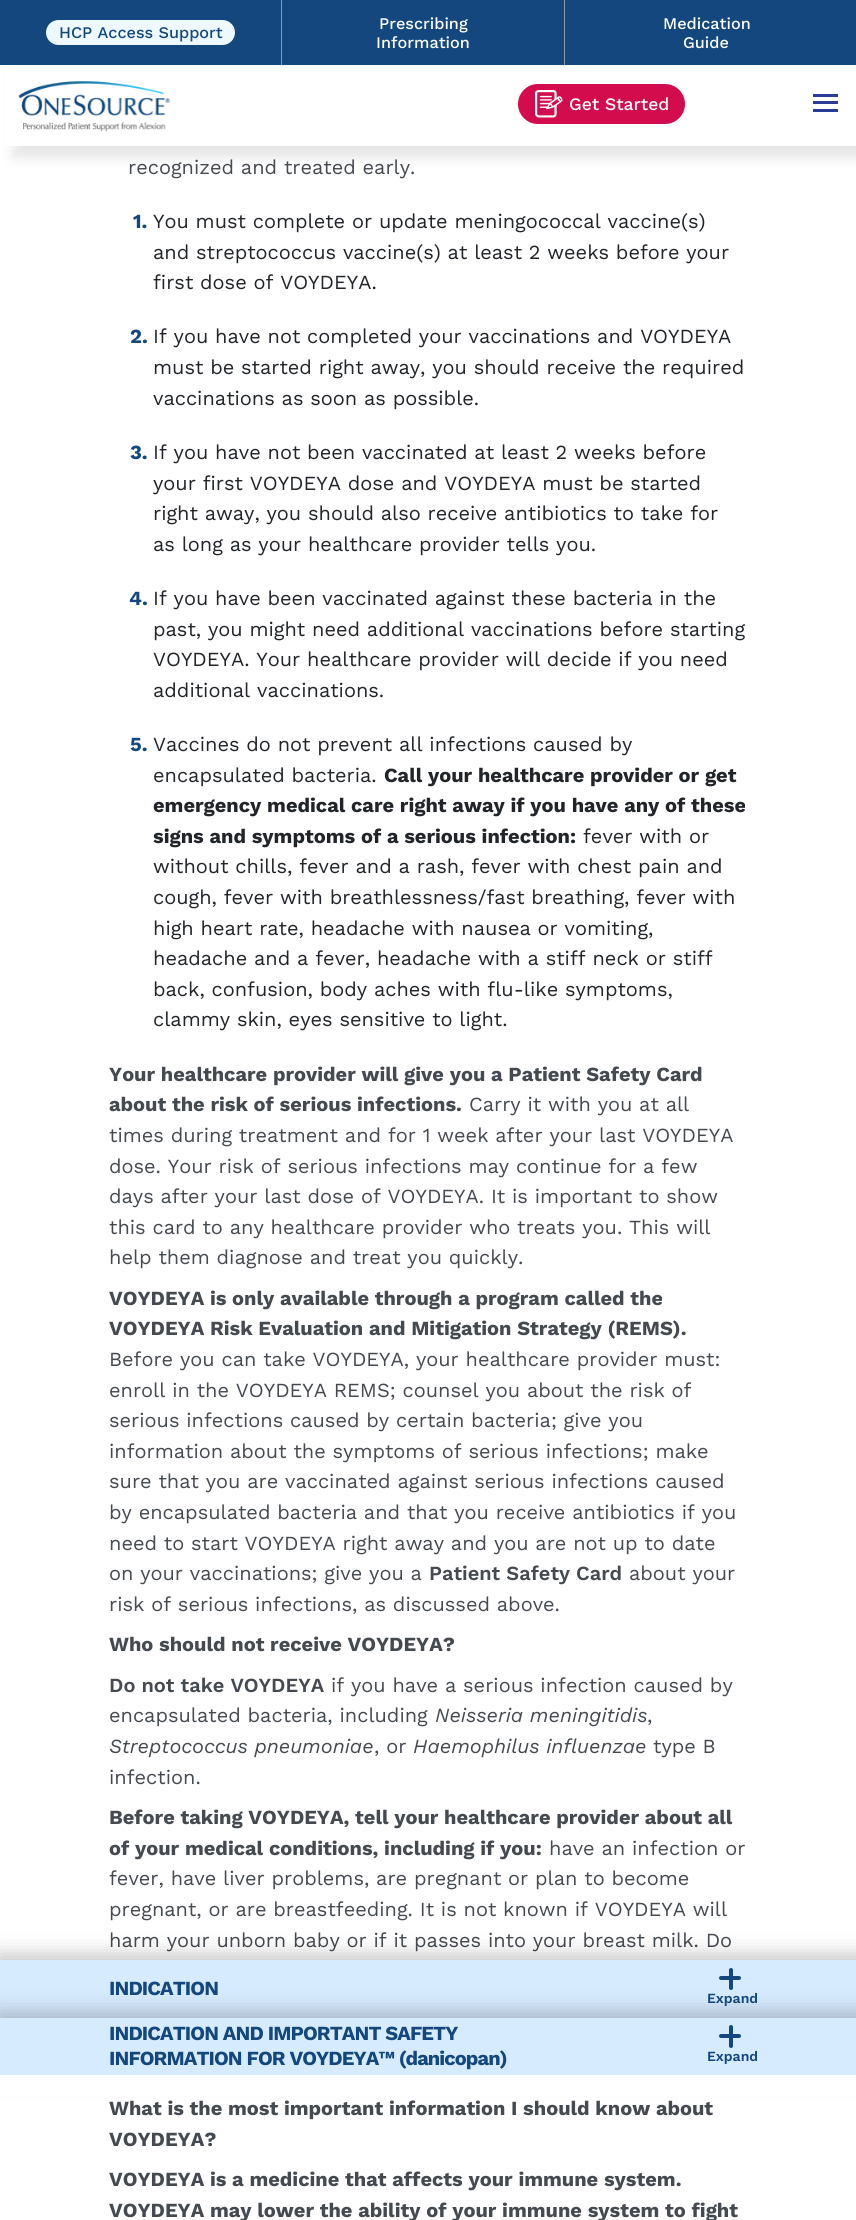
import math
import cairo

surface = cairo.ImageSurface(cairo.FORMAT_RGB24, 856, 2220)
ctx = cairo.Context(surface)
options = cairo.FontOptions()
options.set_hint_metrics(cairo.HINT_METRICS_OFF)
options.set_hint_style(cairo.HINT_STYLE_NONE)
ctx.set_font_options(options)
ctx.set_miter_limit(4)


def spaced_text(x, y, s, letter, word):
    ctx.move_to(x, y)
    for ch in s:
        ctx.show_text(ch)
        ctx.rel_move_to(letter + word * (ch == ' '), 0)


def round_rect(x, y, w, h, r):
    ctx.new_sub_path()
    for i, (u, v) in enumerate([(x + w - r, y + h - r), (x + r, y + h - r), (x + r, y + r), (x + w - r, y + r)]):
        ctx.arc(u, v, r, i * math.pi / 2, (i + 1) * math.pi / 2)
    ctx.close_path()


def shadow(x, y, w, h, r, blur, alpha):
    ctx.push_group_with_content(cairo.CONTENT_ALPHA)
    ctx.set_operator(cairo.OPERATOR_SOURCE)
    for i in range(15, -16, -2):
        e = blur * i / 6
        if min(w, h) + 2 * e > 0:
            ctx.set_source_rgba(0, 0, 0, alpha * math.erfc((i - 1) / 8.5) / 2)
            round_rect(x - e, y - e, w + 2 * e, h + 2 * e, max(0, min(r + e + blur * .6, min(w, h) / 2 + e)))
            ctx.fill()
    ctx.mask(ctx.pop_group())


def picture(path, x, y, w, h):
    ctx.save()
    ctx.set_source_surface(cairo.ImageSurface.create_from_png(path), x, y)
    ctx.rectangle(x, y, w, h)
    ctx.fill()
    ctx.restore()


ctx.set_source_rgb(1, 1, 1)
ctx.paint()
ctx.set_source_rgb(0.078, 0.278, 0.49)
ctx.rectangle(0, 0, 856, 65)
ctx.fill()
ctx.set_source_rgb(0.592, 0.592, 0.592)
ctx.rectangle(281, 0, 1, 65)
ctx.fill()
ctx.set_source_rgb(0.929, 0.969, 1)
round_rect(46, 20, 189, 25, 12.5)
ctx.fill()
ctx.select_font_face("Work Sans Medium")
ctx.set_font_size(16.25)
ctx.set_source_rgb(0.078, 0.278, 0.49)
ctx.move_to(59, 38)
ctx.show_text("HCP Access Support")
ctx.set_source_rgb(0.592, 0.592, 0.592)
ctx.rectangle(564, 0, 1, 65)
ctx.fill()
ctx.set_source_rgb(1, 1, 1)
ctx.move_to(379, 29)
ctx.show_text("Prescribing")
ctx.move_to(376, 48)
ctx.show_text("Information")
ctx.move_to(663, 29)
ctx.show_text("Medication")
ctx.move_to(683, 48)
ctx.show_text("Guide")
ctx.set_source_rgb(0, 0, 0)
shadow(13, 76, 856, 82, 0, 6, 0.1)
ctx.set_source_rgb(1, 1, 1)
ctx.rectangle(5, 68, 851, 78)
ctx.fill()
picture("img1.png", 18, 81, 153, 51)
ctx.set_source_rgb(0.165, 0.235, 0.596)
ctx.rectangle(813, 109, 25, 3)
ctx.fill()
ctx.rectangle(813, 94, 25, 3)
ctx.fill()
ctx.rectangle(813, 101, 25, 3)
ctx.fill()
ctx.set_source_rgb(0.827, 0.051, 0.302)
round_rect(518, 84, 167, 40, 20)
ctx.fill()
picture("img2.png", 535, 90, 28, 28)
ctx.set_font_size(17.5)
ctx.set_source_rgb(1, 1, 1)
ctx.move_to(569, 110)
ctx.show_text("Get Started")
ctx.select_font_face("Work Sans")
ctx.set_font_size(20)
ctx.set_source_rgb(0.271, 0.29, 0.314)
ctx.move_to(128, 174)
ctx.show_text("recognized and treated early.")
ctx.select_font_face("Work Sans", cairo.FONT_SLANT_NORMAL, cairo.FONT_WEIGHT_BOLD)
ctx.set_source_rgb(0.078, 0.278, 0.49)
ctx.move_to(133, 228)
ctx.show_text("1.")
ctx.select_font_face("Work Sans")
ctx.set_source_rgb(0.129, 0.145, 0.161)
ctx.move_to(153, 228)
ctx.show_text("You must complete or update meningococcal vaccine(s)")
ctx.move_to(153, 259)
ctx.show_text("and streptococcus vaccine(s) at least 2 weeks before your")
ctx.move_to(153, 289)
ctx.show_text("first dose of VOYDEYA.")
ctx.select_font_face("Work Sans", cairo.FONT_SLANT_NORMAL, cairo.FONT_WEIGHT_BOLD)
ctx.set_source_rgb(0.078, 0.278, 0.49)
ctx.move_to(130, 343)
ctx.show_text("2.")
ctx.select_font_face("Work Sans")
ctx.set_source_rgb(0.129, 0.145, 0.161)
ctx.move_to(153, 343)
ctx.show_text("If you have not completed your vaccinations and VOYDEYA")
ctx.move_to(153, 374)
ctx.show_text("must be started right away, you should receive the required")
ctx.move_to(153, 405)
ctx.show_text("vaccinations as soon as possible.")
ctx.select_font_face("Work Sans", cairo.FONT_SLANT_NORMAL, cairo.FONT_WEIGHT_BOLD)
ctx.set_source_rgb(0.078, 0.278, 0.49)
ctx.move_to(130, 459)
ctx.show_text("3.")
ctx.select_font_face("Work Sans")
ctx.set_source_rgb(0.129, 0.145, 0.161)
ctx.move_to(153, 459)
ctx.show_text("If you have not been vaccinated at least 2 weeks before")
ctx.move_to(153, 490)
ctx.show_text("your first VOYDEYA dose and VOYDEYA must be started")
ctx.move_to(153, 520)
ctx.show_text("right away, you should also receive antibiotics to take for")
ctx.move_to(153, 551)
ctx.show_text("as long as your healthcare provider tells you.")
ctx.select_font_face("Work Sans", cairo.FONT_SLANT_NORMAL, cairo.FONT_WEIGHT_BOLD)
ctx.set_source_rgb(0.078, 0.278, 0.49)
ctx.move_to(129, 605)
ctx.show_text("4.")
ctx.select_font_face("Work Sans")
ctx.set_source_rgb(0.129, 0.145, 0.161)
ctx.move_to(153, 605)
ctx.show_text("If you have been vaccinated against these bacteria in the")
ctx.move_to(153, 636)
ctx.show_text("past, you might need additional vaccinations before starting")
ctx.move_to(153, 666)
ctx.show_text("VOYDEYA. Your healthcare provider will decide if you need")
ctx.move_to(153, 697)
ctx.show_text("additional vaccinations.")
ctx.select_font_face("Work Sans", cairo.FONT_SLANT_NORMAL, cairo.FONT_WEIGHT_BOLD)
ctx.set_source_rgb(0.078, 0.278, 0.49)
ctx.move_to(130, 751)
ctx.show_text("5.")
ctx.select_font_face("Work Sans")
ctx.set_source_rgb(0.129, 0.145, 0.161)
ctx.move_to(153, 751)
ctx.show_text("Vaccines do not prevent all infections caused by")
ctx.move_to(153, 782)
ctx.show_text("encapsulated bacteria.")
ctx.select_font_face("Work Sans", cairo.FONT_SLANT_NORMAL, cairo.FONT_WEIGHT_BOLD)
ctx.move_to(384, 782)
ctx.show_text("Call your healthcare provider or get")
ctx.move_to(153, 812)
ctx.show_text("emergency medical care right away if you have any of these")
ctx.move_to(153, 843)
ctx.show_text("signs and symptoms of a serious infection:")
ctx.select_font_face("Work Sans")
ctx.move_to(583, 843)
ctx.show_text("fever with or")
ctx.move_to(153, 873)
ctx.show_text("without chills, fever and a rash, fever with chest pain and")
ctx.move_to(153, 904)
ctx.show_text("cough, fever with breathlessness/fast breathing, fever with")
ctx.move_to(153, 935)
ctx.show_text("high heart rate, headache with nausea or vomiting,")
ctx.move_to(153, 965)
ctx.show_text("headache and a fever, headache with a stiff neck or stiff")
ctx.move_to(153, 996)
ctx.show_text("back, confusion, body aches with flu-like symptoms,")
ctx.move_to(153, 1026)
ctx.show_text("clammy skin, eyes sensitive to light.")
ctx.select_font_face("Work Sans", cairo.FONT_SLANT_NORMAL, cairo.FONT_WEIGHT_BOLD)
ctx.set_source_rgb(0.271, 0.29, 0.314)
ctx.move_to(109, 1081)
ctx.show_text("Your healthcare provider will give you a Patient Safety Card")
ctx.move_to(109, 1111)
ctx.show_text("about the risk of serious infections.")
ctx.select_font_face("Work Sans")
ctx.move_to(469, 1111)
ctx.show_text("Carry it with you at all")
ctx.move_to(109, 1142)
ctx.show_text("times during treatment and for 1 week after your last VOYDEYA")
ctx.move_to(109, 1173)
ctx.show_text("dose. Your risk of serious infections may continue for a few")
ctx.move_to(109, 1203)
ctx.show_text("days after your last dose of VOYDEYA. It is important to show")
ctx.move_to(109, 1234)
ctx.show_text("this card to any healthcare provider who treats you. This will")
ctx.move_to(109, 1264)
ctx.show_text("help them diagnose and treat you quickly.")
ctx.select_font_face("Work Sans", cairo.FONT_SLANT_NORMAL, cairo.FONT_WEIGHT_BOLD)
ctx.move_to(109, 1305)
ctx.show_text("VOYDEYA is only available through a program called the")
ctx.move_to(109, 1335)
ctx.show_text("VOYDEYA Risk Evaluation and Mitigation Strategy (REMS).")
ctx.select_font_face("Work Sans")
ctx.move_to(109, 1366)
ctx.show_text("Before you can take VOYDEYA, your healthcare provider must:")
ctx.move_to(109, 1397)
ctx.show_text("enroll in the VOYDEYA REMS; counsel you about the risk of")
ctx.move_to(109, 1427)
ctx.show_text("serious infections caused by certain bacteria; give you")
ctx.move_to(109, 1458)
ctx.show_text("information about the symptoms of serious infections; make")
ctx.move_to(109, 1488)
ctx.show_text("sure that you are vaccinated against serious infections caused")
ctx.move_to(109, 1519)
ctx.show_text("by encapsulated bacteria and that you receive antibiotics if you")
ctx.move_to(109, 1550)
ctx.show_text("need to start VOYDEYA right away and you are not up to date")
ctx.move_to(109, 1580)
ctx.show_text("on your vaccinations; give you a")
ctx.select_font_face("Work Sans SemiBold")
ctx.move_to(429, 1580)
ctx.show_text("Patient Safety Card")
ctx.select_font_face("Work Sans")
ctx.move_to(629, 1580)
ctx.show_text("about your")
ctx.move_to(109, 1611)
ctx.show_text("risk of serious infections, as discussed above.")
ctx.select_font_face("Work Sans", cairo.FONT_SLANT_NORMAL, cairo.FONT_WEIGHT_BOLD)
ctx.move_to(109, 1651)
ctx.show_text("Who should not receive VOYDEYA?")
ctx.select_font_face("Work Sans SemiBold")
ctx.move_to(109, 1692)
ctx.show_text("Do not take VOYDEYA")
ctx.select_font_face("Work Sans")
ctx.move_to(331, 1692)
ctx.show_text("if you have a serious infection caused by")
ctx.move_to(109, 1722)
ctx.show_text("encapsulated bacteria, including")
ctx.select_font_face("Work Sans", cairo.FONT_SLANT_ITALIC)
ctx.move_to(435, 1722)
ctx.show_text("Neisseria meningitidis")
ctx.select_font_face("Work Sans")
ctx.move_to(647, 1722)
ctx.show_text(",")
ctx.select_font_face("Work Sans", cairo.FONT_SLANT_ITALIC)
ctx.move_to(109, 1753)
ctx.show_text("Streptococcus pneumoniae")
ctx.select_font_face("Work Sans")
ctx.move_to(374, 1753)
ctx.show_text(", or")
ctx.select_font_face("Work Sans", cairo.FONT_SLANT_ITALIC)
ctx.move_to(413, 1753)
ctx.show_text("Haemophilus influenzae")
ctx.select_font_face("Work Sans")
ctx.move_to(653, 1753)
ctx.show_text("type B")
ctx.move_to(109, 1784)
ctx.show_text("infection.")
ctx.select_font_face("Work Sans", cairo.FONT_SLANT_NORMAL, cairo.FONT_WEIGHT_BOLD)
ctx.move_to(109, 1824)
ctx.show_text("Before taking VOYDEYA, tell your healthcare provider about all")
ctx.move_to(109, 1855)
ctx.show_text("of your medical conditions, including if you:")
ctx.select_font_face("Work Sans")
ctx.move_to(549, 1855)
ctx.show_text("have an infection or")
ctx.move_to(109, 1885)
ctx.show_text("fever, have liver problems, are pregnant or plan to become")
ctx.move_to(109, 1916)
ctx.show_text("pregnant, or are breastfeeding. It is not known if VOYDEYA will")
ctx.move_to(109, 1947)
ctx.show_text("harm your unborn baby or if it passes into your breast milk. Do")
ctx.set_source_rgb(0, 0, 0)
shadow(-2, 1954, 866, 67, 0, 10, 0.22)
ctx.set_source_rgb(0.843, 0.918, 1)
ctx.rectangle(0, 1960, 856, 58)
ctx.fill()
ctx.set_source_rgb(0, 0, 0)
shadow(-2, 2011, 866, 68, 0, 10, 0.22)
ctx.select_font_face("Work Sans", cairo.FONT_SLANT_NORMAL, cairo.FONT_WEIGHT_BOLD)
ctx.set_source_rgb(0.078, 0.278, 0.49)
spaced_text(109, 1995, "INDICATION", -0.9, 0)
round_rect(719, 1976, 22, 4, 2)
ctx.fill()
round_rect(729, 1968, 4, 22, 2)
ctx.fill()
ctx.select_font_face("Work Sans SemiBold")
ctx.set_font_size(14)
ctx.move_to(707, 2003)
ctx.show_text("Expand")
ctx.set_source_rgb(0.843, 0.918, 1)
ctx.rectangle(0, 2018, 856, 57)
ctx.fill()
ctx.select_font_face("Work Sans", cairo.FONT_SLANT_NORMAL, cairo.FONT_WEIGHT_BOLD)
ctx.set_font_size(20)
ctx.set_source_rgb(0.078, 0.278, 0.49)
spaced_text(109, 2040, "INDICATION AND IMPORTANT SAFETY", -0.9, 0)
spaced_text(109, 2065, "INFORMATION FOR VOYDEYA™ (danicopan)", -0.9, 0)
round_rect(719, 2034, 22, 4, 2)
ctx.fill()
round_rect(729, 2025, 4, 23, 2)
ctx.fill()
ctx.select_font_face("Work Sans SemiBold")
ctx.set_font_size(14)
ctx.move_to(707, 2061)
ctx.show_text("Expand")
ctx.set_source_rgb(1, 1, 1)
ctx.rectangle(0, 2075, 856, 21)
ctx.fill()
ctx.select_font_face("Work Sans", cairo.FONT_SLANT_NORMAL, cairo.FONT_WEIGHT_BOLD)
ctx.set_font_size(20)
ctx.set_source_rgb(0.271, 0.29, 0.314)
ctx.move_to(109, 2115)
ctx.show_text("What is the most important information I should know about")
ctx.move_to(109, 2146)
ctx.show_text("VOYDEYA?")
ctx.move_to(109, 2186)
ctx.show_text("VOYDEYA is a medicine that affects your immune system.")
ctx.move_to(109, 2217)
ctx.show_text("VOYDEYA may lower the ability of your immune system to fight")
surface.write_to_png("page.png")
